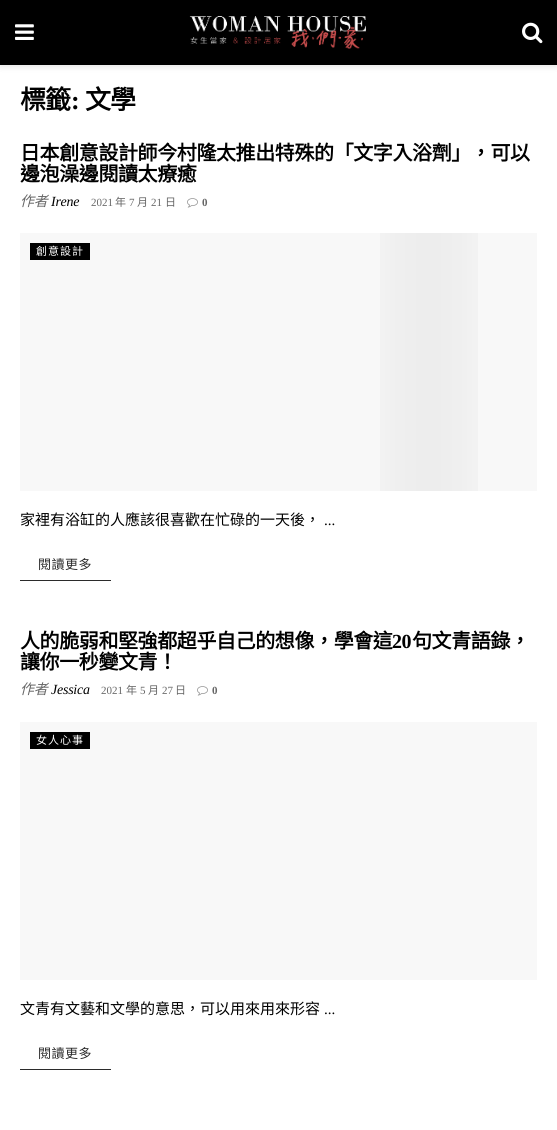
import math
import cairo

surface = cairo.ImageSurface(cairo.FORMAT_RGB24, 557, 1130)
ctx = cairo.Context(surface)
options = cairo.FontOptions()
options.set_hint_metrics(cairo.HINT_METRICS_OFF)
options.set_hint_style(cairo.HINT_STYLE_NONE)
ctx.set_font_options(options)
ctx.set_miter_limit(4)


def spaced_text(x, y, s, letter, word):
    ctx.move_to(x, y)
    for ch in s:
        ctx.show_text(ch)
        ctx.rel_move_to(letter + word * (ch == ' '), 0)


def round_rect(x, y, w, h, r):
    ctx.new_sub_path()
    for i, (u, v) in enumerate([(x + w - r, y + h - r), (x + r, y + h - r), (x + r, y + r), (x + w - r, y + r)]):
        ctx.arc(u, v, r, i * math.pi / 2, (i + 1) * math.pi / 2)
    ctx.close_path()


def shadow(x, y, w, h, r, blur, alpha):
    ctx.push_group_with_content(cairo.CONTENT_ALPHA)
    ctx.set_operator(cairo.OPERATOR_SOURCE)
    for i in range(15, -16, -2):
        e = blur * i / 6
        if min(w, h) + 2 * e > 0:
            ctx.set_source_rgba(0, 0, 0, alpha * math.erfc((i - 1) / 8.5) / 2)
            round_rect(x - e, y - e, w + 2 * e, h + 2 * e, max(0, min(r + e + blur * .6, min(w, h) / 2 + e)))
            ctx.fill()
    ctx.mask(ctx.pop_group())


def picture(path, x, y, w, h):
    ctx.save()
    ctx.set_source_surface(cairo.ImageSurface.create_from_png(path), x, y)
    ctx.rectangle(x, y, w, h)
    ctx.fill()
    ctx.restore()


ctx.set_source_rgb(1, 1, 1)
ctx.paint()
ctx.set_source_rgb(0, 0, 0)
shadow(0, 2, 557, 65, 0, 3, 0.1)
ctx.set_source_rgb(0, 0, 0)
ctx.rectangle(0, 0, 557, 65)
ctx.fill()
picture("img1.png", 15, 24, 19, 16)
picture("img2.png", 189, 16, 177, 33)
picture("img3.png", 522, 22, 21, 22)
ctx.select_font_face("Noto Sans CJK TC", cairo.FONT_SLANT_NORMAL, cairo.FONT_WEIGHT_BOLD)
ctx.set_font_size(26)
spaced_text(20, 109, "標籤", -1, 0)
ctx.select_font_face("Liberation Serif", cairo.FONT_SLANT_NORMAL, cairo.FONT_WEIGHT_BOLD)
spaced_text(71, 109, ":", -1, 0)
ctx.select_font_face("Noto Sans CJK TC", cairo.FONT_SLANT_NORMAL, cairo.FONT_WEIGHT_BOLD)
spaced_text(85, 109, "文學", -1, 0)
ctx.set_font_size(20)
spaced_text(20, 160, "日本創意設計師今村隆太推出特殊的「文字入浴劑」，可以", -0.4, 0)
spaced_text(20, 181, "邊泡澡邊閱讀太療癒", -0.4, 0)
ctx.select_font_face("Noto Sans CJK TC", cairo.FONT_SLANT_ITALIC)
ctx.set_font_size(14)
ctx.set_source_rgb(0.4, 0.4, 0.4)
spaced_text(20, 206, "作者", -0.25, 0)
ctx.select_font_face("Liberation Serif", cairo.FONT_SLANT_ITALIC)
ctx.set_source_rgb(0, 0, 0)
spaced_text(51, 206, "Irene", -0.25, 0)
ctx.select_font_face("Liberation Serif")
ctx.set_font_size(11)
ctx.set_source_rgb(0.4, 0.4, 0.4)
ctx.move_to(91, 206)
ctx.show_text("2021")
ctx.select_font_face("Noto Sans CJK TC")
ctx.move_to(115, 206)
ctx.show_text("年")
ctx.select_font_face("Liberation Serif")
ctx.move_to(129, 206)
ctx.show_text("7")
ctx.select_font_face("Noto Sans CJK TC")
ctx.move_to(137, 206)
ctx.show_text("月")
ctx.select_font_face("Liberation Serif")
ctx.move_to(151, 206)
ctx.show_text("21")
ctx.select_font_face("Noto Sans CJK TC")
ctx.move_to(165, 206)
ctx.show_text("日")
picture("img4.png", 187, 198, 11, 10)
ctx.select_font_face("Liberation Serif", cairo.FONT_SLANT_NORMAL, cairo.FONT_WEIGHT_BOLD)
ctx.move_to(202, 206)
ctx.show_text("0")
ctx.set_source_rgb(0.969, 0.969, 0.969)
ctx.rectangle(20, 233, 517, 258)
ctx.fill()
picture("img5.png", 380, 233, 98, 258)
ctx.set_source_rgb(0, 0, 0)
ctx.rectangle(30, 243, 60, 17)
ctx.fill()
ctx.select_font_face("Noto Sans CJK TC")
ctx.set_source_rgb(1, 1, 1)
spaced_text(36, 255, "創意設計", 1, 0)
ctx.set_font_size(15)
ctx.set_source_rgb(0, 0, 0)
ctx.move_to(20, 525)
ctx.show_text("家裡有浴缸的人應該很喜歡在忙碌的一天後，")
ctx.select_font_face("Liberation Serif")
ctx.move_to(324, 525)
ctx.show_text("...")
ctx.set_source_rgb(0.169, 0.169, 0.169)
ctx.rectangle(20, 580, 91, 1)
ctx.fill()
ctx.select_font_face("Noto Sans CJK TC")
ctx.set_font_size(13)
spaced_text(38, 569, "閱讀更多", 0.5, 0)
ctx.select_font_face("Noto Sans CJK TC", cairo.FONT_SLANT_NORMAL, cairo.FONT_WEIGHT_BOLD)
ctx.set_font_size(20)
ctx.set_source_rgb(0, 0, 0)
spaced_text(20, 648, "人的脆弱和堅強都超乎自己的想像，學會這", -0.4, 0)
ctx.select_font_face("Liberation Serif", cairo.FONT_SLANT_NORMAL, cairo.FONT_WEIGHT_BOLD)
spaced_text(392, 648, "20", -0.4, 0)
ctx.select_font_face("Noto Sans CJK TC", cairo.FONT_SLANT_NORMAL, cairo.FONT_WEIGHT_BOLD)
spaced_text(412, 648, "句文青語錄，", -0.4, 0)
spaced_text(20, 669, "讓你一秒變文青！", -0.4, 0)
ctx.select_font_face("Noto Sans CJK TC", cairo.FONT_SLANT_ITALIC)
ctx.set_font_size(14)
ctx.set_source_rgb(0.4, 0.4, 0.4)
spaced_text(20, 694, "作者", -0.25, 0)
ctx.select_font_face("Liberation Serif", cairo.FONT_SLANT_ITALIC)
ctx.set_source_rgb(0, 0, 0)
spaced_text(51, 694, "Jessica", -0.25, 0)
ctx.select_font_face("Liberation Serif")
ctx.set_font_size(11)
ctx.set_source_rgb(0.4, 0.4, 0.4)
ctx.move_to(101, 694)
ctx.show_text("2021")
ctx.select_font_face("Noto Sans CJK TC")
ctx.move_to(126, 694)
ctx.show_text("年")
ctx.select_font_face("Liberation Serif")
ctx.move_to(140, 694)
ctx.show_text("5")
ctx.select_font_face("Noto Sans CJK TC")
ctx.move_to(148, 694)
ctx.show_text("月")
ctx.select_font_face("Liberation Serif")
ctx.move_to(162, 694)
ctx.show_text("27")
ctx.select_font_face("Noto Sans CJK TC")
ctx.move_to(175, 694)
ctx.show_text("日")
picture("img4.png", 197, 686, 11, 10)
ctx.select_font_face("Liberation Serif", cairo.FONT_SLANT_NORMAL, cairo.FONT_WEIGHT_BOLD)
ctx.move_to(212, 694)
ctx.show_text("0")
ctx.set_source_rgb(0.969, 0.969, 0.969)
ctx.rectangle(20, 722, 517, 258)
ctx.fill()
ctx.set_source_rgb(0, 0, 0)
ctx.rectangle(30, 732, 60, 17)
ctx.fill()
ctx.select_font_face("Noto Sans CJK TC")
ctx.set_source_rgb(1, 1, 1)
spaced_text(36, 744, "女人心事", 1, 0)
ctx.set_font_size(15)
ctx.set_source_rgb(0, 0, 0)
ctx.move_to(20, 1014)
ctx.show_text("文青有文藝和文學的意思，可以用來用來形容")
ctx.select_font_face("Liberation Serif")
ctx.move_to(324, 1014)
ctx.show_text("...")
ctx.set_source_rgb(0.169, 0.169, 0.169)
ctx.rectangle(20, 1069, 91, 1)
ctx.fill()
ctx.select_font_face("Noto Sans CJK TC")
ctx.set_font_size(13)
spaced_text(38, 1058, "閱讀更多", 0.5, 0)
surface.write_to_png("page.png")
